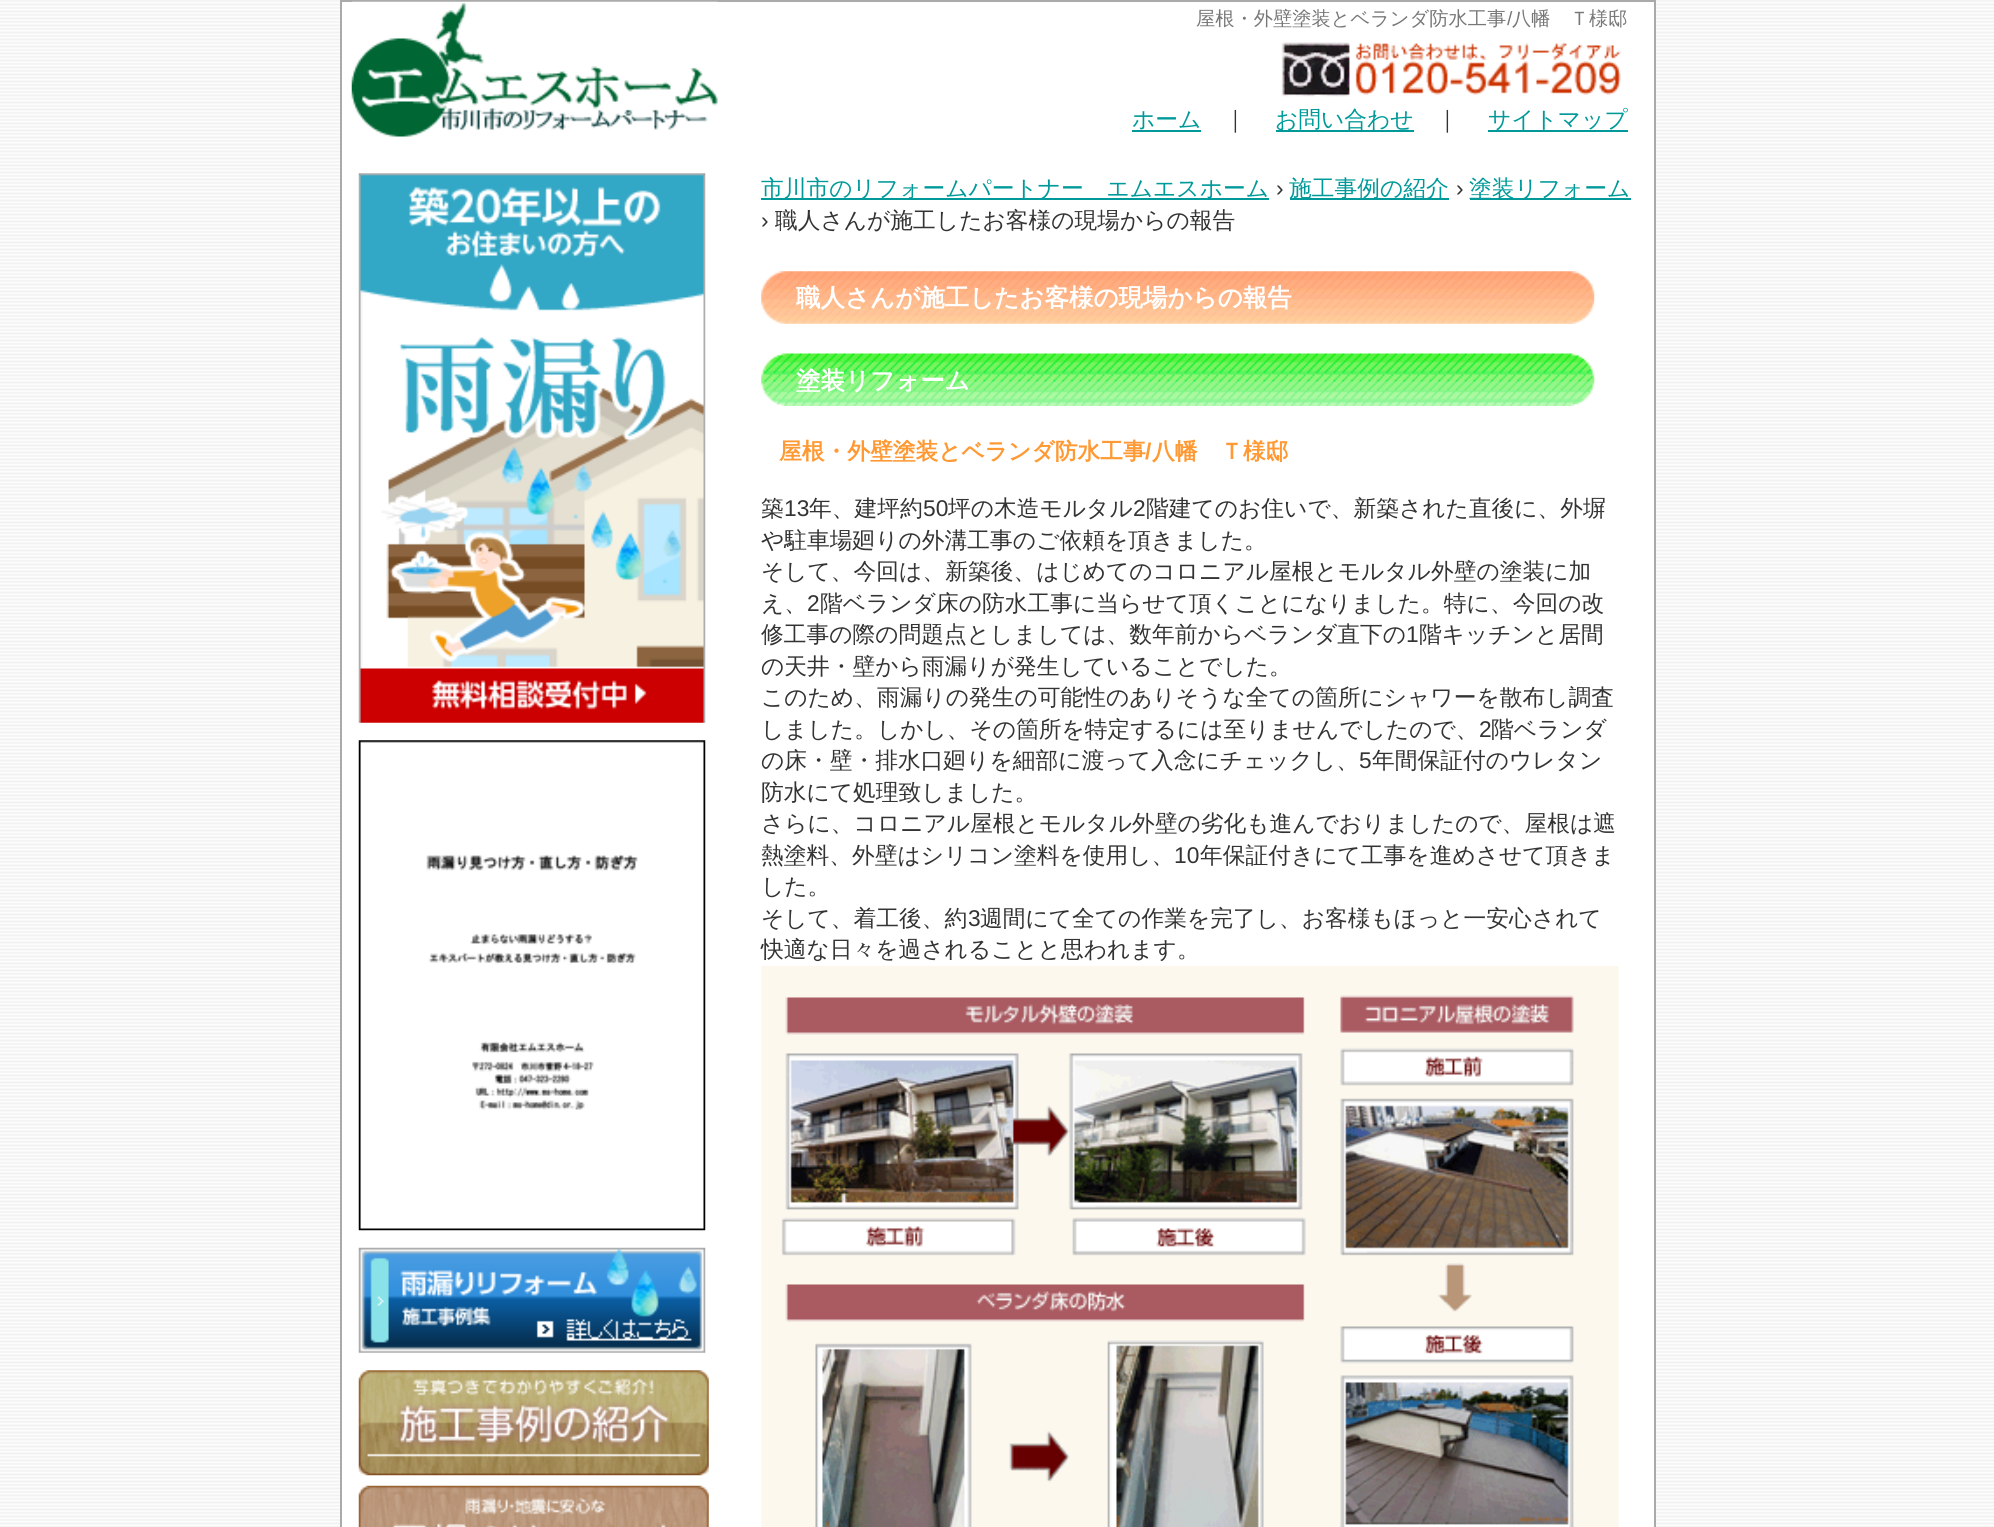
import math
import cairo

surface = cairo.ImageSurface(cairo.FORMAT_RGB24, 1994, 1527)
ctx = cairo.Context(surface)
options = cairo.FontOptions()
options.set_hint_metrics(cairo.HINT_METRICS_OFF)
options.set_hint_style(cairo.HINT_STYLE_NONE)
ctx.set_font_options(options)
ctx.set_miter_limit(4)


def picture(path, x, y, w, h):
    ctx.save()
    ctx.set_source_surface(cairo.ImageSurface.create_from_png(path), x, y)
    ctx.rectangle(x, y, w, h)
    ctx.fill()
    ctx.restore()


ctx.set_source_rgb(1, 1, 1)
ctx.paint()
picture("img1.png", 0, 0, 1994, 1527)
ctx.set_source_rgb(1, 1, 1)
ctx.rectangle(342, 3, 1312, 1524)
ctx.fill()
ctx.rectangle(341, 1, 1314, 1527)
ctx.set_source_rgb(0.667, 0.667, 0.667)
ctx.stroke()
picture("img2.png", 351, 1, 367, 136)
picture("img3.png", 1281, 42, 340, 55)
ctx.select_font_face("WenQuanYi Zen Hei Medium")
ctx.set_font_size(19.25)
ctx.set_source_rgb(0.467, 0.467, 0.467)
ctx.move_to(1196, 25)
ctx.show_text("屋根・外壁塗装とベランダ防水工事")
ctx.select_font_face("Liberation Sans")
ctx.move_to(1507, 25)
ctx.show_text("/")
ctx.select_font_face("WenQuanYi Zen Hei Medium")
ctx.move_to(1512, 25)
ctx.show_text("八幡　Ｔ様邸")
ctx.set_font_size(22.75)
ctx.set_source_rgb(0, 0.6, 0.6)
ctx.move_to(1132, 127)
ctx.show_text("ホーム")
ctx.rectangle(1132, 130, 69, 2)
ctx.fill()
ctx.set_source_rgb(0.2, 0.2, 0.2)
ctx.move_to(1224, 127)
ctx.show_text("｜")
ctx.set_source_rgb(0, 0.6, 0.6)
ctx.rectangle(1276, 130, 138, 2)
ctx.fill()
ctx.move_to(1275, 127)
ctx.show_text("お問い合わせ")
ctx.set_source_rgb(0.2, 0.2, 0.2)
ctx.move_to(1436, 127)
ctx.show_text("｜")
ctx.set_source_rgb(0, 0.6, 0.6)
ctx.rectangle(1488, 130, 140, 2)
ctx.fill()
ctx.move_to(1488, 127)
ctx.show_text("サイトマップ")
picture("img4.png", 358, 173, 348, 550)
picture("img5.png", 358, 740, 348, 491)
picture("img6.png", 358, 1247, 348, 106)
picture("img7.png", 358, 1370, 351, 106)
picture("img8.png", 358, 1485, 351, 42)
ctx.rectangle(761, 198, 508, 2)
ctx.fill()
ctx.move_to(761, 196)
ctx.show_text("市川市のリフォームパートナー　エムエスホーム")
ctx.select_font_face("Liberation Sans")
ctx.set_source_rgb(0.2, 0.2, 0.2)
ctx.move_to(1276, 196)
ctx.show_text("›")
ctx.set_source_rgb(0, 0.6, 0.6)
ctx.rectangle(1290, 198, 159, 2)
ctx.fill()
ctx.select_font_face("WenQuanYi Zen Hei Medium")
ctx.move_to(1289, 196)
ctx.show_text("施工事例の紹介")
ctx.select_font_face("Liberation Sans")
ctx.set_source_rgb(0.2, 0.2, 0.2)
ctx.move_to(1456, 196)
ctx.show_text("›")
ctx.set_source_rgb(0, 0.6, 0.6)
ctx.rectangle(1470, 198, 161, 2)
ctx.fill()
ctx.select_font_face("WenQuanYi Zen Hei Medium")
ctx.move_to(1469, 196)
ctx.show_text("塗装リフォーム")
ctx.select_font_face("Liberation Sans")
ctx.set_source_rgb(0.2, 0.2, 0.2)
ctx.move_to(761, 228)
ctx.show_text("›")
ctx.select_font_face("WenQuanYi Zen Hei Medium")
ctx.move_to(775, 228)
ctx.show_text("職人さんが施工したお客様の現場からの報告")
picture("img9.png", 761, 271, 834, 53)
ctx.select_font_face("WenQuanYi Zen Hei", cairo.FONT_SLANT_NORMAL, cairo.FONT_WEIGHT_BOLD)
ctx.set_font_size(24.5)
ctx.set_source_rgb(1, 1, 1)
ctx.move_to(796, 306)
ctx.show_text("職人さんが施工したお客様の現場からの報告")
picture("img10.png", 761, 353, 834, 53)
ctx.move_to(796, 389)
ctx.show_text("塗装リフォーム")
ctx.set_font_size(22.75)
ctx.set_source_rgb(1, 0.6, 0.2)
ctx.move_to(779, 459)
ctx.show_text("屋根・外壁塗装とベランダ防水工事")
ctx.select_font_face("Liberation Sans", cairo.FONT_SLANT_NORMAL, cairo.FONT_WEIGHT_BOLD)
ctx.move_to(1145, 459)
ctx.show_text("/")
ctx.select_font_face("WenQuanYi Zen Hei", cairo.FONT_SLANT_NORMAL, cairo.FONT_WEIGHT_BOLD)
ctx.move_to(1152, 459)
ctx.show_text("八幡　Ｔ様邸")
ctx.select_font_face("WenQuanYi Zen Hei Medium")
ctx.set_source_rgb(0.2, 0.2, 0.2)
ctx.move_to(761, 516)
ctx.show_text("築")
ctx.select_font_face("Liberation Sans")
ctx.move_to(784, 516)
ctx.show_text("13")
ctx.select_font_face("WenQuanYi Zen Hei Medium")
ctx.move_to(809, 516)
ctx.show_text("年、建坪約")
ctx.select_font_face("Liberation Sans")
ctx.move_to(923, 516)
ctx.show_text("50")
ctx.select_font_face("WenQuanYi Zen Hei Medium")
ctx.move_to(948, 516)
ctx.show_text("坪の木造モルタル")
ctx.select_font_face("Liberation Sans")
ctx.move_to(1133, 516)
ctx.show_text("2")
ctx.select_font_face("WenQuanYi Zen Hei Medium")
ctx.move_to(1146, 516)
ctx.show_text("階建てのお住いで、新築された直後に、外塀")
ctx.move_to(761, 548)
ctx.show_text("や駐車場廻りの外溝工事のご依頼を頂きました。")
ctx.move_to(761, 579)
ctx.show_text("そして、今回は、新築後、はじめてのコロニアル屋根とモルタル外壁の塗装に加")
ctx.move_to(761, 611)
ctx.show_text("え、")
ctx.select_font_face("Liberation Sans")
ctx.move_to(807, 611)
ctx.show_text("2")
ctx.select_font_face("WenQuanYi Zen Hei Medium")
ctx.move_to(820, 611)
ctx.show_text("階ベランダ床の防水工事に当らせて頂くことになりました。特に、今回の改")
ctx.move_to(761, 642)
ctx.show_text("修工事の際の問題点としましては、数年前からベランダ直下の")
ctx.select_font_face("Liberation Sans")
ctx.move_to(1406, 642)
ctx.show_text("1")
ctx.select_font_face("WenQuanYi Zen Hei Medium")
ctx.move_to(1419, 642)
ctx.show_text("階キッチンと居間")
ctx.move_to(761, 674)
ctx.show_text("の天井・壁から雨漏りが発生していることでした。")
ctx.move_to(761, 705)
ctx.show_text("このため、雨漏りの発生の可能性のありそうな全ての箇所にシャワーを散布し調査")
ctx.move_to(761, 737)
ctx.show_text("しました。しかし、その箇所を特定するには至りませんでしたので、")
ctx.select_font_face("Liberation Sans")
ctx.move_to(1479, 737)
ctx.show_text("2")
ctx.select_font_face("WenQuanYi Zen Hei Medium")
ctx.move_to(1491, 737)
ctx.show_text("階ベランダ")
ctx.move_to(761, 768)
ctx.show_text("の床・壁・排水口廻りを細部に渡って入念にチェックし、")
ctx.select_font_face("Liberation Sans")
ctx.move_to(1359, 768)
ctx.show_text("5")
ctx.select_font_face("WenQuanYi Zen Hei Medium")
ctx.move_to(1372, 768)
ctx.show_text("年間保証付のウレタン")
ctx.move_to(761, 800)
ctx.show_text("防水にて処理致しました。")
ctx.move_to(761, 831)
ctx.show_text("さらに、コロニアル屋根とモルタル外壁の劣化も進んでおりましたので、屋根は遮")
ctx.move_to(761, 863)
ctx.show_text("熱塗料、外壁はシリコン塗料を使用し、")
ctx.select_font_face("Liberation Sans")
ctx.move_to(1174, 863)
ctx.show_text("10")
ctx.select_font_face("WenQuanYi Zen Hei Medium")
ctx.move_to(1200, 863)
ctx.show_text("年保証付きにて工事を進めさせて頂きま")
ctx.move_to(761, 894)
ctx.show_text("した。")
ctx.move_to(761, 926)
ctx.show_text("そして、着工後、約")
ctx.select_font_face("Liberation Sans")
ctx.move_to(968, 926)
ctx.show_text("3")
ctx.select_font_face("WenQuanYi Zen Hei Medium")
ctx.move_to(980, 926)
ctx.show_text("週間にて全ての作業を完了し、お客様もほっと一安心されて")
ctx.move_to(761, 957)
ctx.show_text("快適な日々を過されることと思われます。")
picture("img11.png", 761, 966, 858, 561)
surface.write_to_png("page.png")
